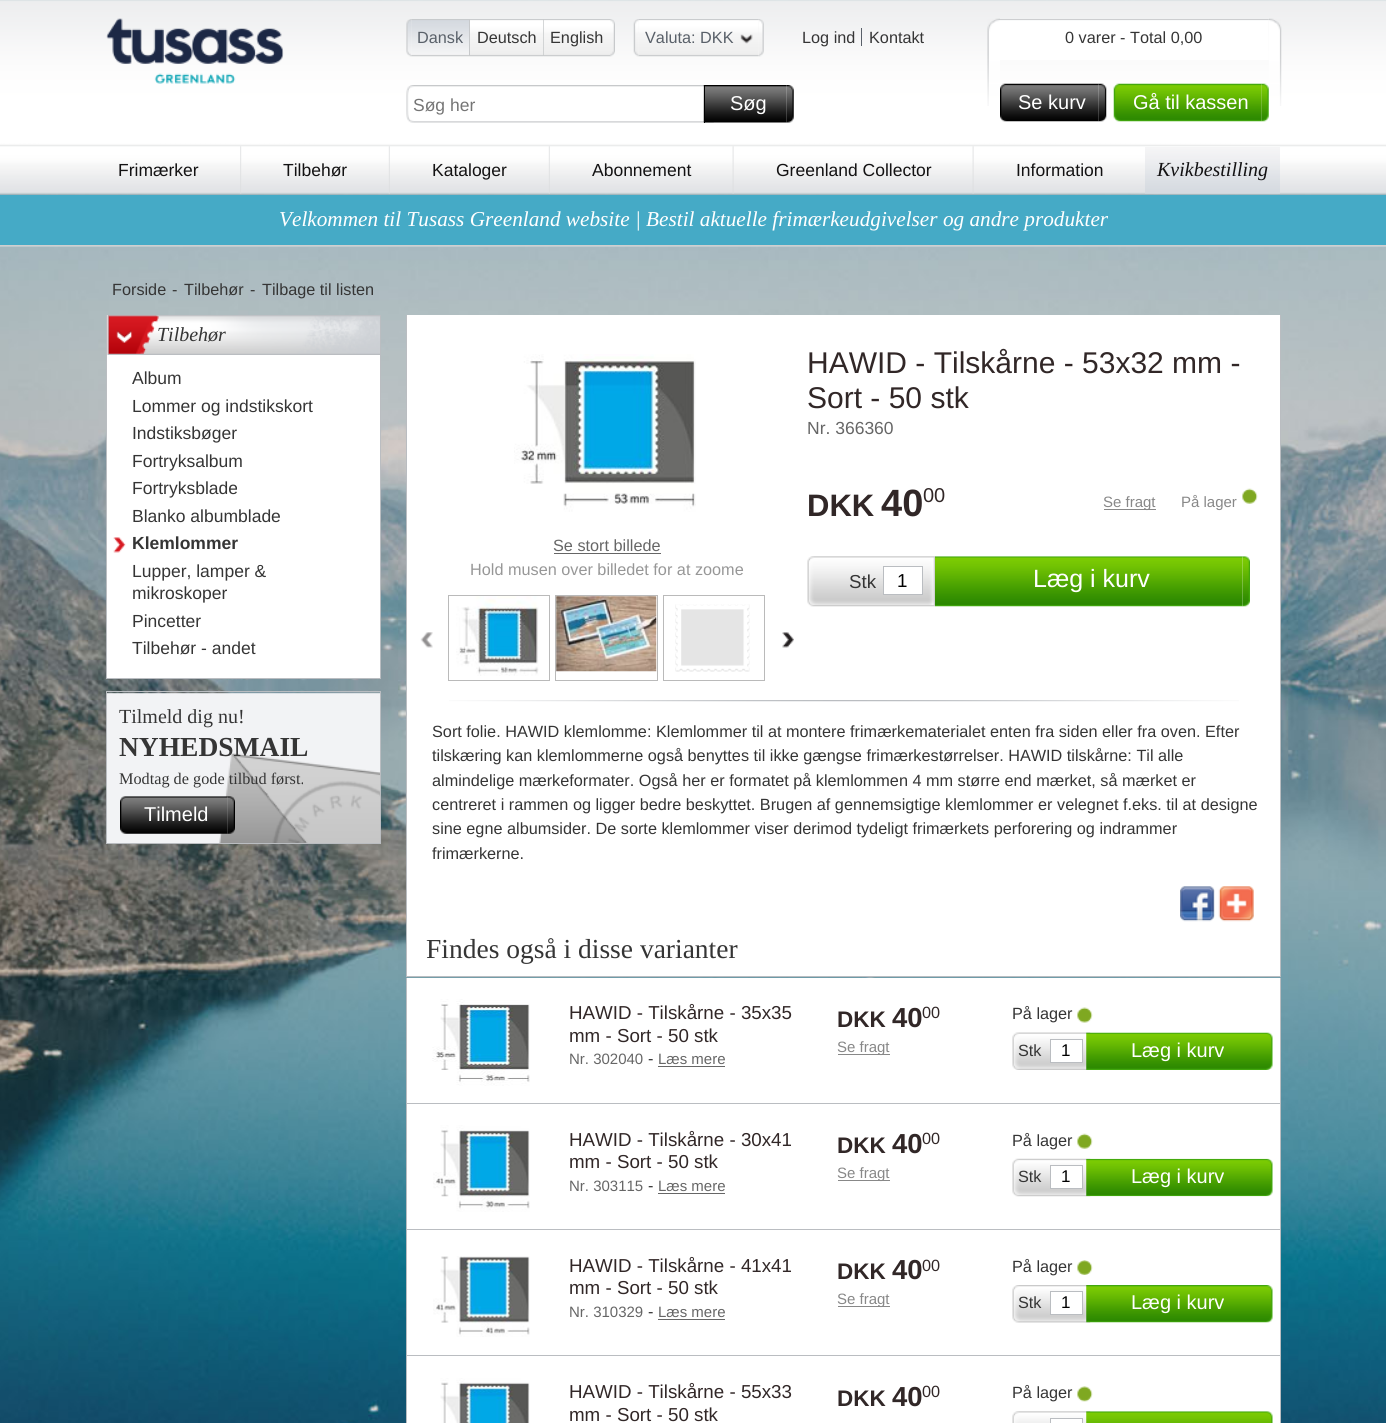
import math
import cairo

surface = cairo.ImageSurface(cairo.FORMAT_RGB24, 1386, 1423)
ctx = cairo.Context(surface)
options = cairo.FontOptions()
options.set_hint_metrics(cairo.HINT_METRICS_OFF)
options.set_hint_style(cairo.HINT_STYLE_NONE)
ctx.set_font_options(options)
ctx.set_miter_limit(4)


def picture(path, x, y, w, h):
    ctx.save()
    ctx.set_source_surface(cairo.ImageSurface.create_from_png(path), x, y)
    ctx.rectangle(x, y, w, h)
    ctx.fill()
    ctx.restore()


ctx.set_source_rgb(1, 1, 1)
ctx.paint()
picture("img1.png", 0, 0, 1386, 1423)
picture("img2.png", 0, 0, 1386, 247)
ctx.set_source_rgb(0.812, 0.812, 0.812)
ctx.rectangle(0, 245, 1386, 1)
ctx.fill()
picture("img3.png", 106, 18, 178, 66)
picture("img4.png", 406, 19, 6, 38)
picture("img5.png", 411, 19, 59, 38)
ctx.set_source_rgb(0.78, 0.788, 0.796)
ctx.rectangle(469, 19, 1, 37)
ctx.fill()
ctx.select_font_face("Liberation Sans")
ctx.set_font_size(16.25)
ctx.set_source_rgb(0.349, 0.376, 0.412)
ctx.move_to(417, 43)
ctx.show_text("Dansk")
picture("img6.png", 470, 19, 74, 38)
ctx.set_source_rgb(0.78, 0.788, 0.796)
ctx.rectangle(543, 19, 1, 37)
ctx.fill()
ctx.set_source_rgb(0.208, 0.208, 0.208)
ctx.move_to(477, 43)
ctx.show_text("Deutsch")
picture("img7.png", 543, 19, 67, 38)
ctx.move_to(550, 43)
ctx.show_text("English")
picture("img8.png", 610, 19, 5, 38)
picture("img9.png", 633, 19, 6, 38)
picture("img10.png", 638, 19, 121, 38)
ctx.set_source_rgb(0.349, 0.376, 0.412)
ctx.move_to(645, 43)
ctx.show_text("Valuta: DKK")
picture("img11.png", 740, 34, 13, 10)
picture("img12.png", 759, 19, 5, 38)
ctx.set_source_rgb(0.208, 0.208, 0.208)
ctx.move_to(802, 43)
ctx.show_text("Log ind")
ctx.set_source_rgb(0.349, 0.376, 0.412)
ctx.rectangle(861, 28, 1, 18)
ctx.fill()
ctx.set_source_rgb(0.208, 0.208, 0.208)
ctx.move_to(869, 43)
ctx.show_text("Kontakt")
picture("img13.png", 406, 85, 308, 38)
ctx.set_font_size(17.5)
ctx.set_source_rgb(0.459, 0.459, 0.459)
ctx.move_to(413, 111)
ctx.show_text("Søg her")
picture("img14.png", 703, 85, 84, 38)
ctx.set_source_rgb(0, 0, 0)
ctx.rectangle(704, 85, 1, 38)
ctx.fill()
ctx.set_font_size(20)
ctx.set_source_rgb(1, 1, 1)
ctx.move_to(730, 110)
ctx.show_text("Søg")
picture("img15.png", 786, 85, 8, 38)
picture("img16.png", 987, 18, 13, 88)
picture("img17.png", 1000, 19, 269, 41)
ctx.set_font_size(16.25)
ctx.set_source_rgb(0.208, 0.208, 0.208)
ctx.move_to(1065, 43)
ctx.show_text("0 varer - Total 0,00")
picture("img18.png", 1000, 83, 99, 39)
ctx.set_font_size(20)
ctx.set_source_rgb(1, 1, 1)
ctx.move_to(1018, 109)
ctx.show_text("Se kurv")
picture("img19.png", 1098, 83, 9, 39)
picture("img20.png", 1113, 83, 149, 39)
ctx.move_to(1133, 109)
ctx.show_text("Gå til kassen")
picture("img21.png", 1261, 83, 8, 39)
picture("img22.png", 1269, 18, 13, 88)
ctx.set_font_size(17.5)
ctx.set_source_rgb(0.078, 0.071, 0.075)
ctx.move_to(118, 176)
ctx.show_text("Frimærker")
picture("img23.png", 240, 146, 2, 48)
ctx.move_to(283, 176)
ctx.show_text("Tilbehør")
picture("img24.png", 388, 146, 2, 48)
ctx.move_to(432, 176)
ctx.show_text("Kataloger")
picture("img25.png", 548, 146, 2, 48)
ctx.move_to(592, 176)
ctx.show_text("Abonnement")
picture("img26.png", 732, 146, 2, 48)
ctx.move_to(776, 176)
ctx.show_text("Greenland Collector")
picture("img27.png", 972, 146, 2, 48)
ctx.move_to(1016, 176)
ctx.show_text("Information")
picture("img28.png", 1145, 147, 135, 47)
ctx.select_font_face("Liberation Serif", cairo.FONT_SLANT_ITALIC)
ctx.set_font_size(20)
ctx.move_to(1157, 176)
ctx.show_text("Kvikbestilling")
ctx.set_source_rgb(0.271, 0.667, 0.776)
ctx.rectangle(0, 195, 1386, 50)
ctx.fill()
ctx.set_font_size(21.25)
ctx.set_source_rgb(1, 1, 1)
ctx.move_to(279, 226)
ctx.show_text("Velkommen til Tusass Greenland website | Bestil aktuelle frimærkeudgivelser og andre produkter")
ctx.select_font_face("Liberation Sans")
ctx.set_font_size(16.25)
ctx.set_source_rgb(0.208, 0.208, 0.208)
ctx.move_to(112, 295)
ctx.show_text("Forside")
ctx.move_to(172, 295)
ctx.show_text("-")
ctx.move_to(184, 295)
ctx.show_text("Tilbehør")
ctx.move_to(250, 295)
ctx.show_text("-")
ctx.move_to(262, 295)
ctx.show_text("Tilbage til listen")
ctx.set_source_rgb(1, 1, 1)
ctx.rectangle(107, 315, 273, 363)
ctx.fill()
ctx.set_source_rgb(0.729, 0.741, 0.757)
ctx.rectangle(380, 315, 1, 364)
ctx.fill()
ctx.rectangle(106, 678, 275, 1)
ctx.fill()
ctx.rectangle(106, 315, 1, 364)
ctx.fill()
picture("img29.png", 107, 315, 273, 40)
picture("img30.png", 116, 330, 17, 13)
ctx.select_font_face("Liberation Serif", cairo.FONT_SLANT_ITALIC)
ctx.set_font_size(20)
ctx.set_source_rgb(0.208, 0.208, 0.208)
ctx.move_to(157, 341)
ctx.show_text("Tilbehør")
ctx.select_font_face("Liberation Sans")
ctx.set_font_size(17.5)
ctx.move_to(132, 384)
ctx.show_text("Album")
ctx.move_to(132, 412)
ctx.show_text("Lommer og indstikskort")
ctx.move_to(132, 439)
ctx.show_text("Indstiksbøger")
ctx.move_to(132, 467)
ctx.show_text("Fortryksalbum")
ctx.move_to(132, 494)
ctx.show_text("Fortryksblade")
ctx.move_to(132, 522)
ctx.show_text("Blanko albumblade")
picture("img31.png", 113, 537, 13, 16)
ctx.select_font_face("Liberation Sans", cairo.FONT_SLANT_NORMAL, cairo.FONT_WEIGHT_BOLD)
ctx.move_to(132, 549)
ctx.show_text("Klemlommer")
ctx.select_font_face("Liberation Sans")
ctx.move_to(132, 577)
ctx.show_text("Lupper, lamper &")
ctx.move_to(132, 599)
ctx.show_text("mikroskoper")
ctx.move_to(132, 627)
ctx.show_text("Pincetter")
ctx.move_to(132, 654)
ctx.show_text("Tilbehør - andet")
picture("img32.png", 107, 692, 273, 151)
ctx.rectangle(106.5, 691.5, 274, 152)
ctx.set_source_rgb(0.729, 0.741, 0.757)
ctx.set_line_width(1)
ctx.stroke()
ctx.select_font_face("Liberation Serif")
ctx.set_font_size(20)
ctx.set_source_rgb(0.208, 0.208, 0.208)
ctx.move_to(119, 723)
ctx.show_text("Tilmeld dig nu!")
ctx.select_font_face("Liberation Serif", cairo.FONT_SLANT_NORMAL, cairo.FONT_WEIGHT_BOLD)
ctx.set_font_size(27.5)
ctx.move_to(119, 756)
ctx.show_text("NYHEDSMAIL")
ctx.select_font_face("Liberation Serif")
ctx.set_font_size(16.25)
ctx.move_to(119, 784)
ctx.show_text("Modtag de gode tilbud først.")
picture("img33.png", 120, 796, 108, 38)
ctx.select_font_face("Liberation Sans")
ctx.set_font_size(20)
ctx.set_source_rgb(1, 1, 1)
ctx.move_to(144, 821)
ctx.show_text("Tilmeld")
picture("img34.png", 227, 796, 8, 38)
ctx.rectangle(407, 315, 873, 661)
ctx.fill()
ctx.set_source_rgb(0.729, 0.741, 0.757)
ctx.rectangle(1280, 315, 1, 661)
ctx.fill()
ctx.rectangle(406, 315, 1, 661)
ctx.fill()
picture("img35.png", 514, 354, 182, 158)
ctx.set_font_size(16.25)
ctx.set_source_rgb(0.4, 0.4, 0.4)
ctx.move_to(553, 551)
ctx.show_text("Se stort billede")
ctx.rectangle(554, 553, 107, 1)
ctx.fill()
ctx.set_source_rgb(0.592, 0.592, 0.592)
ctx.move_to(470, 575)
ctx.show_text("Hold musen over billedet for at zoome")
picture("img36.png", 420, 632, 13, 16)
ctx.rectangle(448.5, 595.5, 101, 85)
ctx.set_source_rgb(0.729, 0.729, 0.729)
ctx.stroke()
picture("img37.png", 456, 596, 83, 80)
ctx.rectangle(555.5, 595.5, 102, 85)
ctx.stroke()
picture("img38.png", 556, 596, 101, 76)
ctx.rectangle(663.5, 595.5, 101, 85)
ctx.stroke()
picture("img39.png", 675, 604, 75, 68)
picture("img40.png", 782, 632, 12, 16)
ctx.set_font_size(30)
ctx.set_source_rgb(0.192, 0.153, 0.153)
ctx.move_to(807, 373)
ctx.show_text("HAWID - Tilskårne - 53x32 mm -")
ctx.move_to(807, 408)
ctx.show_text("Sort - 50 stk")
ctx.set_font_size(17.5)
ctx.set_source_rgb(0.4, 0.4, 0.4)
ctx.move_to(807, 434)
ctx.show_text("Nr. 366360")
ctx.select_font_face("Liberation Sans", cairo.FONT_SLANT_NORMAL, cairo.FONT_WEIGHT_BOLD)
ctx.set_font_size(31)
ctx.set_source_rgb(0.192, 0.153, 0.153)
ctx.move_to(807, 516)
ctx.show_text("DKK")
ctx.set_font_size(38)
ctx.move_to(881, 516)
ctx.show_text("40")
ctx.select_font_face("Liberation Sans")
ctx.set_font_size(20)
ctx.move_to(923, 502)
ctx.show_text("00")
ctx.set_source_rgb(0.533, 0.533, 0.533)
ctx.rectangle(1104, 509, 52, 1)
ctx.fill()
ctx.set_font_size(15)
ctx.move_to(1103, 507)
ctx.show_text("Se fragt")
ctx.move_to(1181, 507)
ctx.show_text("På lager")
picture("img41.png", 1242, 488, 16, 16)
picture("img42.png", 807, 556, 129, 51)
ctx.set_font_size(18.75)
ctx.set_source_rgb(0.208, 0.208, 0.208)
ctx.move_to(849, 588)
ctx.show_text("Stk")
ctx.set_source_rgb(1, 1, 1)
ctx.rectangle(883.5, 566.5, 39, 28)
ctx.fill_preserve()
ctx.set_source_rgb(0.729, 0.741, 0.757)
ctx.stroke()
ctx.set_source_rgb(0, 0, 0)
ctx.move_to(897, 587)
ctx.show_text("1")
picture("img43.png", 935, 556, 308, 51)
ctx.set_font_size(25)
ctx.set_source_rgb(1, 1, 1)
ctx.move_to(1033, 587)
ctx.show_text("Læg i kurv")
picture("img44.png", 1242, 556, 8, 51)
picture("img45.png", 449, 700, 790, 2)
ctx.set_font_size(16.25)
ctx.set_source_rgb(0.208, 0.208, 0.208)
ctx.move_to(432, 737)
ctx.show_text("Sort folie. HAWID klemlomme: Klemlommer til at montere frimærkematerialet enten fra siden eller fra oven. Efter")
ctx.move_to(432, 761)
ctx.show_text("tilskæring kan klemlommerne også benyttes til ikke gængse frimærkestørrelser. HAWID tilskårne: Til alle")
ctx.move_to(432, 786)
ctx.show_text("almindelige mærkeformater. Også her er formatet på klemlommen 4 mm større end mærket, så mærket er")
ctx.move_to(432, 810)
ctx.show_text("centreret i rammen og ligger bedre beskyttet. Brugen af gennemsigtige klemlommer er velegnet f.eks. til at designe")
ctx.move_to(432, 834)
ctx.show_text("sine egne albumsider. De sorte klemlommer viser derimod tydeligt frimærkets perforering og indrammer")
ctx.move_to(432, 859)
ctx.show_text("frimærkerne.")
picture("img46.png", 1180, 886, 35, 36)
picture("img47.png", 1218, 886, 36, 36)
ctx.set_source_rgb(0.729, 0.741, 0.757)
ctx.rectangle(406, 976, 875, 1)
ctx.fill()
ctx.select_font_face("Liberation Serif")
ctx.set_font_size(27.5)
ctx.set_source_rgb(0.208, 0.208, 0.208)
ctx.move_to(426, 958)
ctx.show_text("Findes også i disse varianter")
ctx.set_source_rgb(0.729, 0.741, 0.757)
ctx.rectangle(406, 1103, 875, 1)
ctx.fill()
ctx.set_source_rgb(1, 1, 1)
ctx.rectangle(407, 978, 873, 125)
ctx.fill()
ctx.set_source_rgb(0.729, 0.741, 0.757)
ctx.rectangle(1280, 978, 1, 125)
ctx.fill()
ctx.rectangle(406, 978, 1, 125)
ctx.fill()
picture("img48.png", 432, 999, 98, 87)
ctx.select_font_face("Liberation Sans")
ctx.set_font_size(18.75)
ctx.set_source_rgb(0.192, 0.153, 0.153)
ctx.move_to(569, 1019)
ctx.show_text("HAWID - Tilskårne - 35x35")
ctx.move_to(569, 1042)
ctx.show_text("mm - Sort - 50 stk")
ctx.select_font_face("Liberation Sans", cairo.FONT_SLANT_NORMAL, cairo.FONT_WEIGHT_BOLD)
ctx.set_font_size(22.5)
ctx.move_to(837, 1027)
ctx.show_text("DKK")
ctx.set_font_size(27.5)
ctx.move_to(892, 1027)
ctx.show_text("40")
ctx.select_font_face("Liberation Sans")
ctx.set_font_size(16.25)
ctx.move_to(922, 1018)
ctx.show_text("00")
ctx.set_source_rgb(0.208, 0.208, 0.208)
ctx.move_to(1012, 1019)
ctx.show_text("På lager")
picture("img49.png", 1077, 1007, 16, 16)
ctx.set_source_rgb(0.533, 0.533, 0.533)
ctx.rectangle(838, 1054, 52, 1)
ctx.fill()
ctx.set_font_size(15)
ctx.move_to(837, 1052)
ctx.show_text("Se fragt")
picture("img50.png", 1012, 1032, 79, 38)
ctx.set_font_size(16.25)
ctx.set_source_rgb(0.208, 0.208, 0.208)
ctx.move_to(1018, 1056)
ctx.show_text("Stk")
ctx.set_source_rgb(1, 1, 1)
ctx.rectangle(1050.5, 1039.5, 32, 23)
ctx.fill_preserve()
ctx.set_source_rgb(0.729, 0.741, 0.757)
ctx.stroke()
ctx.set_font_size(17)
ctx.set_source_rgb(0, 0, 0)
ctx.move_to(1061, 1056)
ctx.show_text("1")
picture("img51.png", 1086, 1032, 179, 38)
ctx.set_font_size(20)
ctx.set_source_rgb(1, 1, 1)
ctx.move_to(1131, 1057)
ctx.show_text("Læg i kurv")
picture("img52.png", 1265, 1032, 8, 38)
ctx.set_font_size(15)
ctx.set_source_rgb(0.4, 0.4, 0.4)
ctx.move_to(569, 1064)
ctx.show_text("Nr. 302040")
ctx.set_font_size(16.25)
ctx.set_source_rgb(0.208, 0.208, 0.208)
ctx.move_to(648, 1064)
ctx.show_text("-")
ctx.set_font_size(15)
ctx.set_source_rgb(0.4, 0.4, 0.4)
ctx.move_to(658, 1064)
ctx.show_text("Læs mere")
ctx.rectangle(658, 1066, 67, 1)
ctx.fill()
ctx.set_source_rgb(0.729, 0.741, 0.757)
ctx.rectangle(406, 1229, 875, 1)
ctx.fill()
ctx.set_source_rgb(1, 1, 1)
ctx.rectangle(407, 1104, 873, 125)
ctx.fill()
ctx.set_source_rgb(0.729, 0.741, 0.757)
ctx.rectangle(1280, 1104, 1, 125)
ctx.fill()
ctx.rectangle(406, 1104, 1, 125)
ctx.fill()
picture("img53.png", 433, 1125, 97, 87)
ctx.set_font_size(18.75)
ctx.set_source_rgb(0.192, 0.153, 0.153)
ctx.move_to(569, 1146)
ctx.show_text("HAWID - Tilskårne - 30x41")
ctx.move_to(569, 1168)
ctx.show_text("mm - Sort - 50 stk")
ctx.select_font_face("Liberation Sans", cairo.FONT_SLANT_NORMAL, cairo.FONT_WEIGHT_BOLD)
ctx.set_font_size(22.5)
ctx.move_to(837, 1153)
ctx.show_text("DKK")
ctx.set_font_size(27.5)
ctx.move_to(892, 1153)
ctx.show_text("40")
ctx.select_font_face("Liberation Sans")
ctx.set_font_size(16.25)
ctx.move_to(922, 1144)
ctx.show_text("00")
ctx.set_source_rgb(0.208, 0.208, 0.208)
ctx.move_to(1012, 1146)
ctx.show_text("På lager")
picture("img54.png", 1077, 1133, 16, 16)
ctx.set_source_rgb(0.533, 0.533, 0.533)
ctx.rectangle(838, 1180, 52, 1)
ctx.fill()
ctx.set_font_size(15)
ctx.move_to(837, 1178)
ctx.show_text("Se fragt")
picture("img55.png", 1012, 1158, 79, 39)
ctx.set_font_size(16.25)
ctx.set_source_rgb(0.208, 0.208, 0.208)
ctx.move_to(1018, 1182)
ctx.show_text("Stk")
ctx.set_source_rgb(1, 1, 1)
ctx.rectangle(1050.5, 1165.5, 32, 23)
ctx.fill_preserve()
ctx.set_source_rgb(0.729, 0.741, 0.757)
ctx.stroke()
ctx.set_font_size(17)
ctx.set_source_rgb(0, 0, 0)
ctx.move_to(1061, 1182)
ctx.show_text("1")
picture("img56.png", 1086, 1158, 179, 39)
ctx.set_font_size(20)
ctx.set_source_rgb(1, 1, 1)
ctx.move_to(1131, 1183)
ctx.show_text("Læg i kurv")
picture("img57.png", 1265, 1158, 8, 39)
ctx.set_font_size(15)
ctx.set_source_rgb(0.4, 0.4, 0.4)
ctx.move_to(569, 1191)
ctx.show_text("Nr. 303115")
ctx.set_font_size(16.25)
ctx.set_source_rgb(0.208, 0.208, 0.208)
ctx.move_to(648, 1191)
ctx.show_text("-")
ctx.set_font_size(15)
ctx.set_source_rgb(0.4, 0.4, 0.4)
ctx.move_to(658, 1191)
ctx.show_text("Læs mere")
ctx.rectangle(658, 1193, 67, 1)
ctx.fill()
ctx.set_source_rgb(0.729, 0.741, 0.757)
ctx.rectangle(406, 1355, 875, 1)
ctx.fill()
ctx.set_source_rgb(1, 1, 1)
ctx.rectangle(407, 1230, 873, 125)
ctx.fill()
ctx.set_source_rgb(0.729, 0.741, 0.757)
ctx.rectangle(1280, 1230, 1, 125)
ctx.fill()
ctx.rectangle(406, 1230, 1, 125)
ctx.fill()
picture("img58.png", 433, 1256, 97, 81)
ctx.set_font_size(18.75)
ctx.set_source_rgb(0.192, 0.153, 0.153)
ctx.move_to(569, 1272)
ctx.show_text("HAWID - Tilskårne - 41x41")
ctx.move_to(569, 1294)
ctx.show_text("mm - Sort - 50 stk")
ctx.select_font_face("Liberation Sans", cairo.FONT_SLANT_NORMAL, cairo.FONT_WEIGHT_BOLD)
ctx.set_font_size(22.5)
ctx.move_to(837, 1279)
ctx.show_text("DKK")
ctx.set_font_size(27.5)
ctx.move_to(892, 1279)
ctx.show_text("40")
ctx.select_font_face("Liberation Sans")
ctx.set_font_size(16.25)
ctx.move_to(922, 1271)
ctx.show_text("00")
ctx.set_source_rgb(0.208, 0.208, 0.208)
ctx.move_to(1012, 1272)
ctx.show_text("På lager")
picture("img59.png", 1077, 1260, 16, 15)
ctx.set_source_rgb(0.533, 0.533, 0.533)
ctx.rectangle(838, 1306, 52, 1)
ctx.fill()
ctx.set_font_size(15)
ctx.move_to(837, 1304)
ctx.show_text("Se fragt")
picture("img60.png", 1012, 1285, 79, 38)
ctx.set_font_size(16.25)
ctx.set_source_rgb(0.208, 0.208, 0.208)
ctx.move_to(1018, 1308)
ctx.show_text("Stk")
ctx.set_source_rgb(1, 1, 1)
ctx.rectangle(1050.5, 1291.5, 32, 23)
ctx.fill_preserve()
ctx.set_source_rgb(0.729, 0.741, 0.757)
ctx.stroke()
ctx.set_font_size(17)
ctx.set_source_rgb(0, 0, 0)
ctx.move_to(1061, 1308)
ctx.show_text("1")
picture("img61.png", 1086, 1285, 179, 38)
ctx.set_font_size(20)
ctx.set_source_rgb(1, 1, 1)
ctx.move_to(1131, 1309)
ctx.show_text("Læg i kurv")
picture("img62.png", 1265, 1285, 8, 38)
ctx.set_font_size(15)
ctx.set_source_rgb(0.4, 0.4, 0.4)
ctx.move_to(569, 1317)
ctx.show_text("Nr. 310329")
ctx.set_font_size(16.25)
ctx.set_source_rgb(0.208, 0.208, 0.208)
ctx.move_to(648, 1317)
ctx.show_text("-")
ctx.set_font_size(15)
ctx.set_source_rgb(0.4, 0.4, 0.4)
ctx.move_to(658, 1317)
ctx.show_text("Læs mere")
ctx.rectangle(658, 1319, 67, 1)
ctx.fill()
ctx.set_source_rgb(1, 1, 1)
ctx.rectangle(407, 1356, 873, 67)
ctx.fill()
ctx.set_source_rgb(0.729, 0.741, 0.757)
ctx.rectangle(1280, 1356, 1, 67)
ctx.fill()
ctx.rectangle(406, 1356, 1, 67)
ctx.fill()
picture("img63.png", 440, 1378, 90, 45)
ctx.set_font_size(18.75)
ctx.set_source_rgb(0.192, 0.153, 0.153)
ctx.move_to(569, 1398)
ctx.show_text("HAWID - Tilskårne - 55x33")
ctx.move_to(569, 1421)
ctx.show_text("mm - Sort - 50 stk")
ctx.select_font_face("Liberation Sans", cairo.FONT_SLANT_NORMAL, cairo.FONT_WEIGHT_BOLD)
ctx.set_font_size(22.5)
ctx.move_to(837, 1406)
ctx.show_text("DKK")
ctx.set_font_size(27.5)
ctx.move_to(892, 1406)
ctx.show_text("40")
ctx.select_font_face("Liberation Sans")
ctx.set_font_size(16.25)
ctx.move_to(922, 1397)
ctx.show_text("00")
ctx.set_source_rgb(0.208, 0.208, 0.208)
ctx.move_to(1012, 1398)
ctx.show_text("På lager")
picture("img64.png", 1077, 1386, 16, 16)
picture("img65.png", 1012, 1411, 79, 12)
ctx.set_source_rgb(1, 1, 1)
ctx.rectangle(1050.5, 1418.5, 32, 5)
ctx.fill_preserve()
ctx.set_source_rgb(0.729, 0.741, 0.757)
ctx.stroke()
picture("img66.png", 1086, 1411, 179, 12)
picture("img67.png", 1265, 1411, 8, 12)
surface.write_to_png("page.png")
